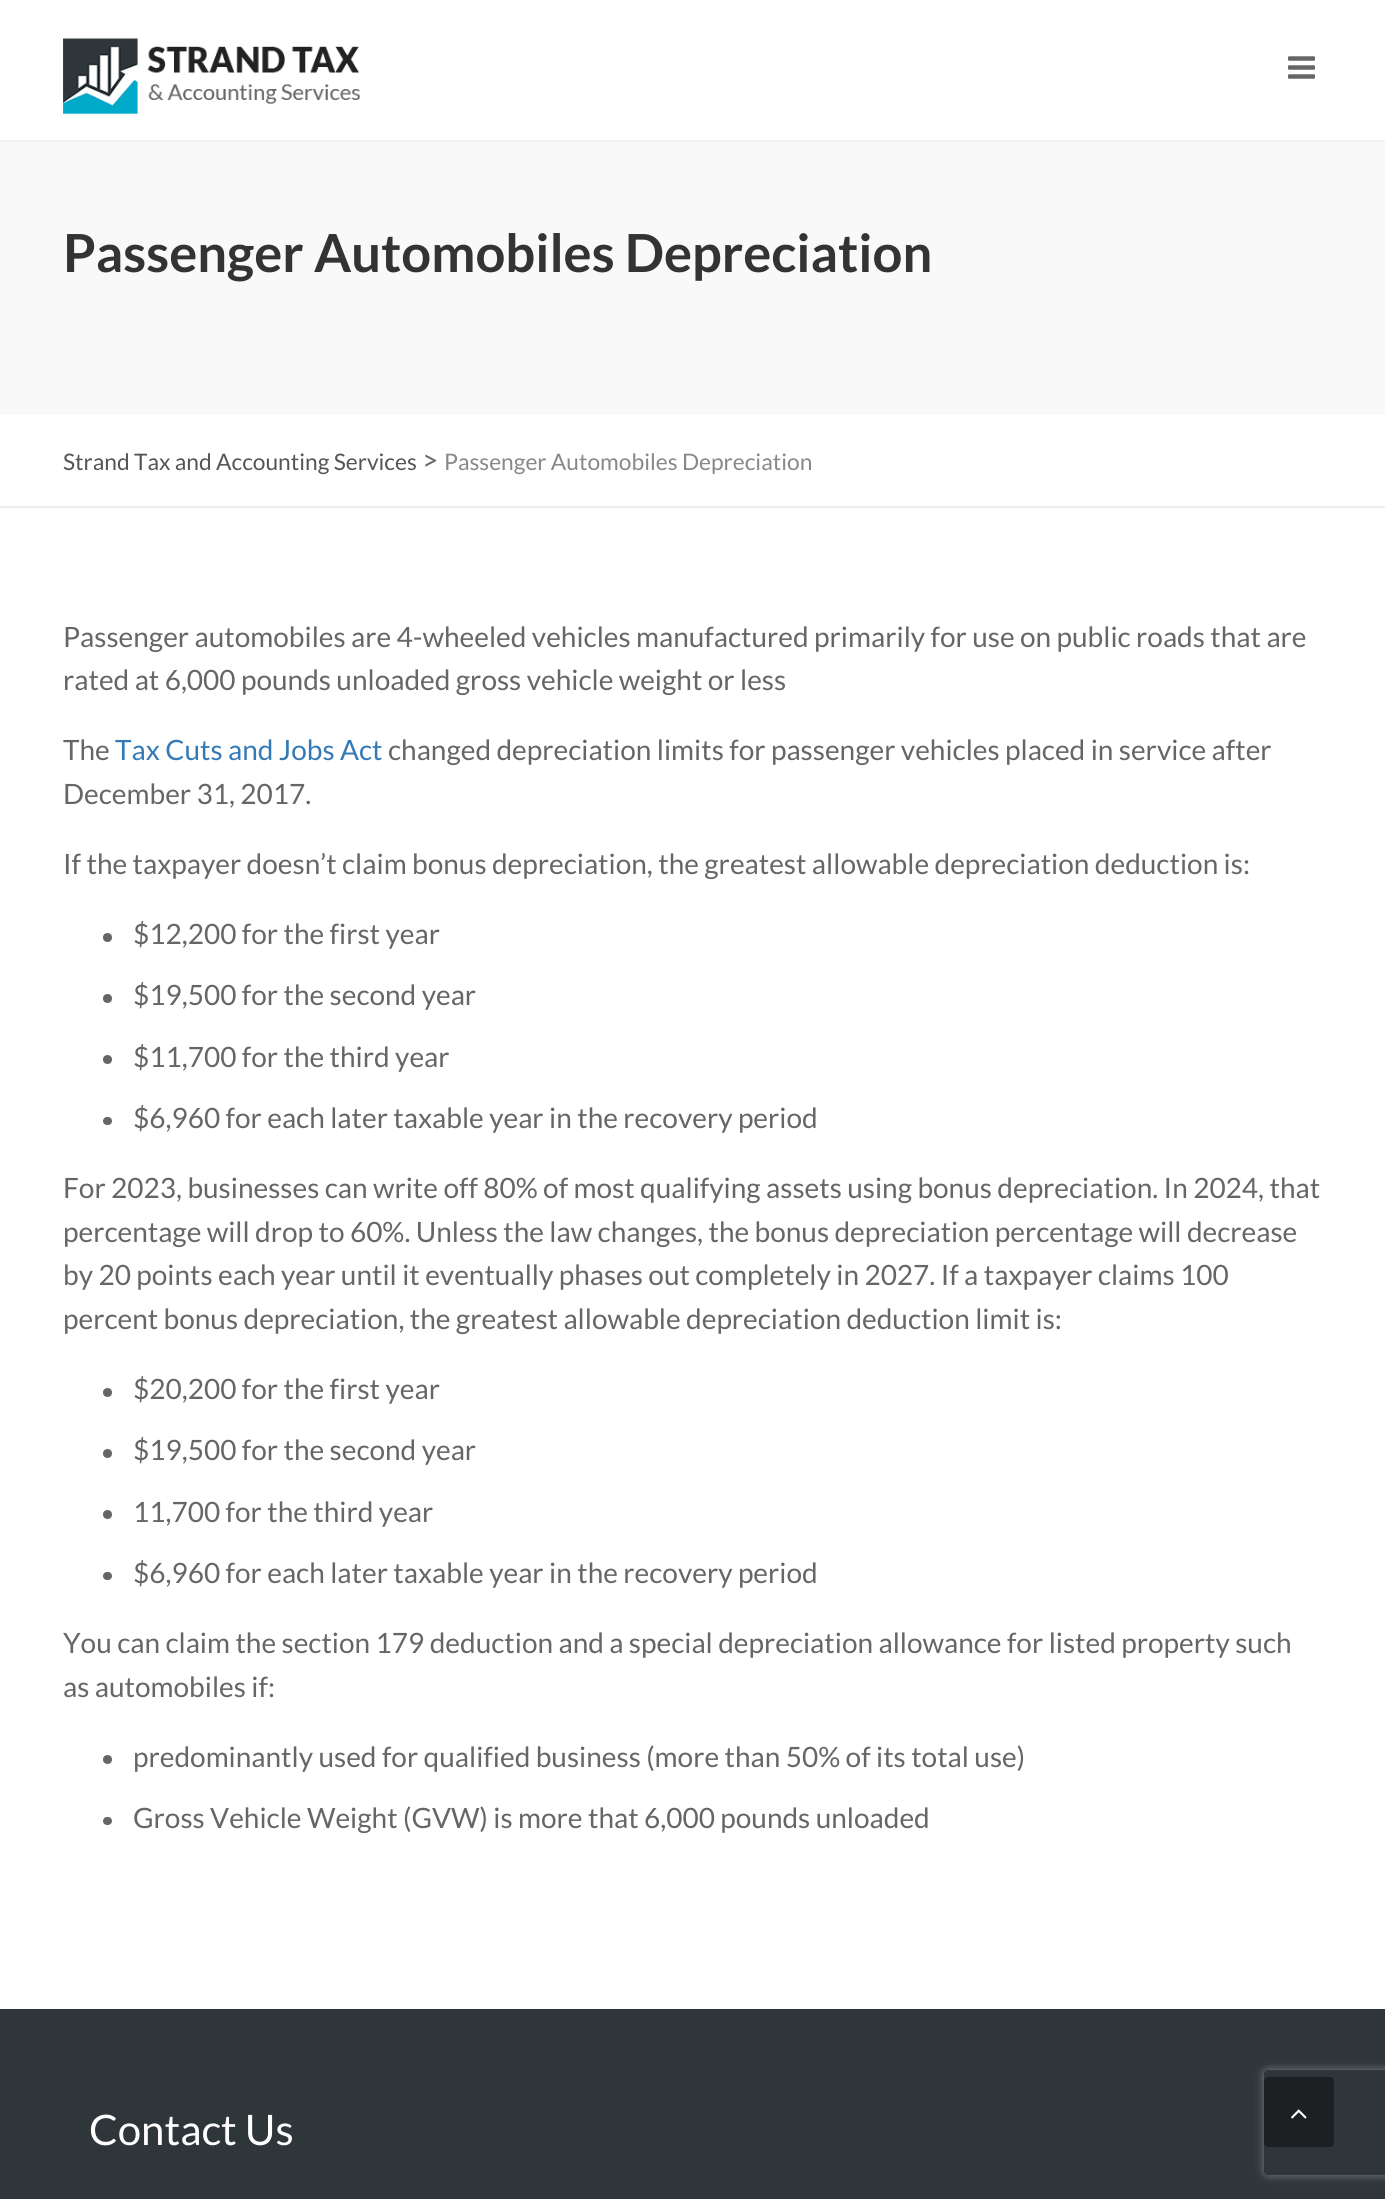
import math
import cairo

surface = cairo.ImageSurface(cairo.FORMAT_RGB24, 1385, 2199)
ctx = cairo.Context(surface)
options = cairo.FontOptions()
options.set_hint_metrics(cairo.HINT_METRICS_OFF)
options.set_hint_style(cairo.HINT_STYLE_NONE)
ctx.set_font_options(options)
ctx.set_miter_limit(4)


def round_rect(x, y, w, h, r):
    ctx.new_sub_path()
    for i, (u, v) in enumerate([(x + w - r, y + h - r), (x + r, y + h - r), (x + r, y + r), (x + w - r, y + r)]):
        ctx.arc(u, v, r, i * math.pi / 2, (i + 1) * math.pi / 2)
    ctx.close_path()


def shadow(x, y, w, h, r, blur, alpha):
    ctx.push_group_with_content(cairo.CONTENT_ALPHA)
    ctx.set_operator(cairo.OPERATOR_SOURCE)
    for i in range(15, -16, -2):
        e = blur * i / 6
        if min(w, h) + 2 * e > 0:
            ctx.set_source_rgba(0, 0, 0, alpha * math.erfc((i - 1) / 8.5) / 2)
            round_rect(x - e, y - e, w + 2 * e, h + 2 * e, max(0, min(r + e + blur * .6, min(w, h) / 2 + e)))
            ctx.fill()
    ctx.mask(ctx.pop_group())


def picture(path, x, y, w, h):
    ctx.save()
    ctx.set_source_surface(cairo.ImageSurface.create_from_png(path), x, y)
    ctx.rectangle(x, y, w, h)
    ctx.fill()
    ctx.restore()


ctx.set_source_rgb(1, 1, 1)
ctx.paint()
ctx.set_source_rgb(0.949, 0.949, 0.949)
ctx.rectangle(0, 140, 1385, 2)
ctx.fill()
picture("img1.png", 63, 38, 298, 76)
picture("img2.png", 1288, 56, 27, 23)
ctx.set_source_rgb(0.973, 0.973, 0.973)
ctx.rectangle(0, 142, 1385, 273)
ctx.fill()
ctx.select_font_face("Lato", cairo.FONT_SLANT_NORMAL, cairo.FONT_WEIGHT_BOLD)
ctx.set_font_size(52.5)
ctx.set_source_rgb(0.2, 0.2, 0.2)
ctx.move_to(63, 272)
ctx.show_text("Passenger Automobiles Depreciation")
ctx.select_font_face("Lato")
ctx.set_font_size(22.75)
ctx.set_source_rgb(0.333, 0.333, 0.333)
ctx.move_to(63, 470)
ctx.show_text("Strand Tax and Accounting Services")
ctx.set_font_size(28)
ctx.set_source_rgb(0.4, 0.4, 0.4)
ctx.move_to(422, 470)
ctx.show_text(">")
ctx.set_font_size(22.75)
ctx.set_source_rgb(0.533, 0.533, 0.533)
ctx.move_to(444, 470)
ctx.show_text("Passenger Automobiles Depreciation")
ctx.set_source_rgb(0.922, 0.922, 0.922)
ctx.rectangle(0, 506, 1385, 2)
ctx.fill()
ctx.set_font_size(28)
ctx.set_source_rgb(0.4, 0.4, 0.4)
ctx.move_to(63, 647)
ctx.show_text("Passenger automobiles are 4-wheeled vehicles manufactured primarily for use on public roads that are")
ctx.move_to(63, 690)
ctx.show_text("rated at 6,000 pounds unloaded gross vehicle weight or less")
ctx.move_to(63, 760)
ctx.show_text("The")
ctx.set_source_rgb(0.2, 0.478, 0.718)
ctx.move_to(115, 760)
ctx.show_text("Tax Cuts and Jobs Act")
ctx.set_source_rgb(0.4, 0.4, 0.4)
ctx.move_to(388, 760)
ctx.show_text("changed depreciation limits for passenger vehicles placed in service after")
ctx.move_to(63, 804)
ctx.show_text("December 31, 2017.")
ctx.move_to(63, 874)
ctx.show_text("If the taxpayer doesn’t claim bonus depreciation, the greatest allowable depreciation deduction is:")
ctx.new_path()
ctx.arc(107.5, 937.5, 4.5, 0, 2 * math.pi)
ctx.fill()
ctx.move_to(133, 944)
ctx.show_text("$12,200 for the first year")
ctx.new_path()
ctx.arc(107.5, 998.5, 4.5, 0, 2 * math.pi)
ctx.fill()
ctx.move_to(133, 1005)
ctx.show_text("$19,500 for the second year")
ctx.new_path()
ctx.arc(107.5, 1059.5, 4.5, 0, 2 * math.pi)
ctx.fill()
ctx.move_to(133, 1067)
ctx.show_text("$11,700 for the third year")
round_rect(103, 1117, 9, 8, 4)
ctx.fill()
ctx.move_to(133, 1128)
ctx.show_text("$6,960 for each later taxable year in the recovery period")
ctx.move_to(63, 1198)
ctx.show_text("For 2023, businesses can write off 80% of most qualifying assets using bonus depreciation. In 2024, that")
ctx.move_to(63, 1242)
ctx.show_text("percentage will drop to 60%. Unless the law changes, the bonus depreciation percentage will decrease")
ctx.move_to(63, 1285)
ctx.show_text("by 20 points each year until it eventually phases out completely in 2027. If a taxpayer claims 100")
ctx.move_to(63, 1329)
ctx.show_text("percent bonus depreciation, the greatest allowable depreciation deduction limit is:")
ctx.new_path()
ctx.arc(107.5, 1392.5, 4.5, 0, 2 * math.pi)
ctx.fill()
ctx.move_to(133, 1399)
ctx.show_text("$20,200 for the first year")
ctx.new_path()
ctx.arc(107.5, 1453.5, 4.5, 0, 2 * math.pi)
ctx.fill()
ctx.move_to(133, 1460)
ctx.show_text("$19,500 for the second year")
ctx.new_path()
ctx.arc(107.5, 1514.5, 4.5, 0, 2 * math.pi)
ctx.fill()
ctx.move_to(133, 1522)
ctx.show_text("11,700 for the third year")
round_rect(103, 1572, 9, 8, 4)
ctx.fill()
ctx.move_to(133, 1583)
ctx.show_text("$6,960 for each later taxable year in the recovery period")
ctx.move_to(63, 1653)
ctx.show_text("You can claim the section 179 deduction and a special depreciation allowance for listed property such")
ctx.move_to(63, 1697)
ctx.show_text("as automobiles if:")
ctx.new_path()
ctx.arc(107.5, 1759.5, 4.5, 0, 2 * math.pi)
ctx.fill()
ctx.move_to(133, 1767)
ctx.show_text("predominantly used for qualified business (more than 50% of its total use)")
round_rect(103, 1817, 9, 8, 4)
ctx.fill()
ctx.move_to(133, 1828)
ctx.show_text("Gross Vehicle Weight (GVW) is more that 6,000 pounds unloaded")
ctx.set_source_rgb(0.18, 0.212, 0.227)
ctx.rectangle(0, 2009, 1385, 190)
ctx.fill()
ctx.set_font_size(42)
ctx.set_source_rgb(1, 1, 1)
ctx.move_to(89, 2145)
ctx.show_text("Contact Us")
ctx.save()
ctx.set_fill_rule(cairo.FILL_RULE_EVEN_ODD)
ctx.new_path()
ctx.move_to(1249, 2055)
ctx.line_to(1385, 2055)
ctx.line_to(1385, 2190)
ctx.line_to(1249, 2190)
ctx.close_path()
ctx.move_to(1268, 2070)
ctx.line_to(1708, 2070)
ctx.curve_to(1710, 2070, 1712, 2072, 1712, 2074)
ctx.line_to(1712, 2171)
ctx.curve_to(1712, 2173, 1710, 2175, 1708, 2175)
ctx.line_to(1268, 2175)
ctx.curve_to(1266, 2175, 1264, 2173, 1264, 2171)
ctx.line_to(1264, 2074)
ctx.curve_to(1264, 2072, 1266, 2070, 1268, 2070)
ctx.close_path()
ctx.clip()
ctx.set_source_rgb(0.502, 0.502, 0.502)
shadow(1264, 2070, 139, 105, 4, 4.5, 1)
ctx.restore()
ctx.set_source_rgb(0.11, 0.125, 0.137)
round_rect(1264, 2077, 70, 70, 4)
ctx.fill()
picture("img3.png", 1291, 2109, 16, 10)
surface.write_to_png("page.png")
